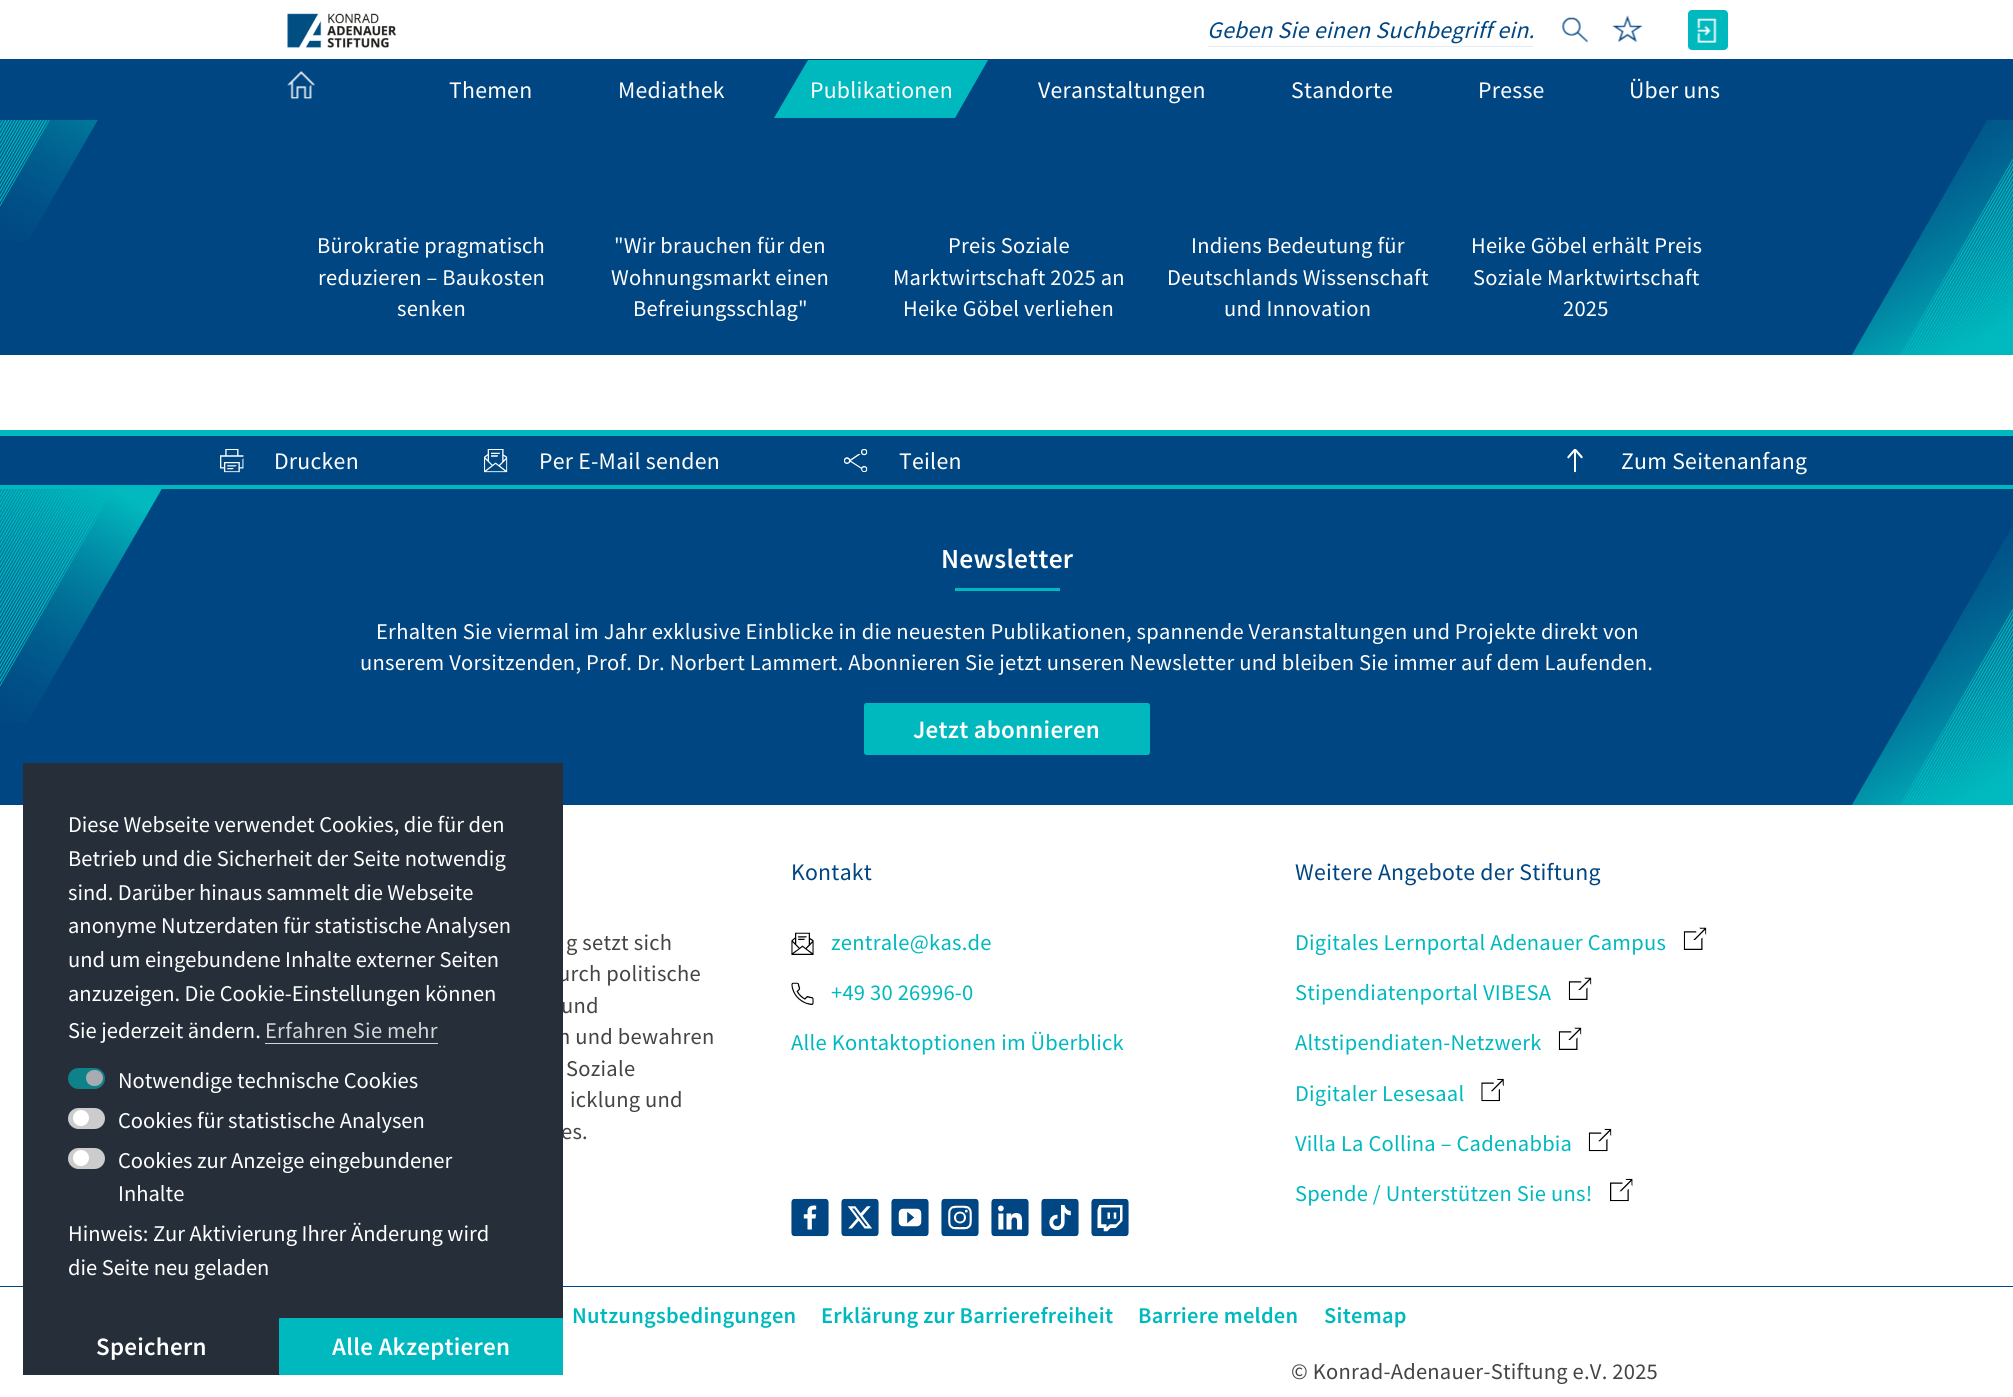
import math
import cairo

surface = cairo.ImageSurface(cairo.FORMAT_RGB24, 2013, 1397)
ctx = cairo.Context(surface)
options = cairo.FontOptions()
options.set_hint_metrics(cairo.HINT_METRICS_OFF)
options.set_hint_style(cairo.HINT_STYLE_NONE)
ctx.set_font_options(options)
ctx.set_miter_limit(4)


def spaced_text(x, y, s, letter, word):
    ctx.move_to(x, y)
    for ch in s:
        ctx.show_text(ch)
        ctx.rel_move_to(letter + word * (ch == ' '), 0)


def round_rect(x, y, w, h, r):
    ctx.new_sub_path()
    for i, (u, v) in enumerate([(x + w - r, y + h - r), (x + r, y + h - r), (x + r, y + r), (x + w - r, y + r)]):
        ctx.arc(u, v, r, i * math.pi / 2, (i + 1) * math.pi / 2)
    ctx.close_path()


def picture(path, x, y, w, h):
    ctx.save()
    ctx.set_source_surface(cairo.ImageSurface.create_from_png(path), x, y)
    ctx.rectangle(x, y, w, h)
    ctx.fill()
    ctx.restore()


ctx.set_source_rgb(1, 1, 1)
ctx.paint()
picture("img1.png", 287, 13, 110, 35)
ctx.set_source_rgb(0.898, 0.925, 0.949)
ctx.rectangle(1208, 46, 325, 1)
ctx.fill()
ctx.save()
ctx.rectangle(1208, 14, 325, 30)
ctx.clip()
ctx.select_font_face("Source Sans Pro", cairo.FONT_SLANT_ITALIC)
ctx.set_font_size(23.75)
ctx.set_source_rgb(0, 0.275, 0.51)
spaced_text(1207, 38, "Geben Sie einen Suchbegriff ein.", 0.25, 0)
ctx.restore()
picture("img2.png", 1562, 17, 26, 26)
picture("img3.png", 1612, 15, 31, 27)
ctx.set_source_rgb(0, 0.725, 0.745)
round_rect(1688, 10, 40, 40, 4)
ctx.fill()
picture("img4.png", 1697, 18, 20, 25)
ctx.set_source_rgb(0, 0.275, 0.51)
ctx.rectangle(0, 59, 2013, 296)
ctx.fill()
picture("img5.png", 287, 71, 28, 29)
ctx.select_font_face("Source Sans Pro")
ctx.set_font_size(23.75)
ctx.set_source_rgb(1, 1, 1)
spaced_text(449, 98, "Themen", 0.25, 0)
spaced_text(618, 98, "Mediathek", 0.25, 0)
ctx.set_source_rgb(0, 0.725, 0.745)
ctx.new_path()
ctx.move_to(808, 60)
ctx.line_to(988, 60)
ctx.line_to(955, 118)
ctx.line_to(774, 118)
ctx.close_path()
ctx.fill()
ctx.set_source_rgb(1, 1, 1)
spaced_text(810, 98, "Publikationen", 0.25, 0)
spaced_text(1038, 98, "Veranstaltungen", 0.25, 0)
spaced_text(1291, 98, "Standorte", 0.25, 0)
spaced_text(1478, 98, "Presse", 0.25, 0)
spaced_text(1629, 98, "Über uns", 0.25, 0)
picture("img6.png", 0, 120, 98, 121)
ctx.set_font_size(22.5)
spaced_text(317, 253, "Bürokratie pragmatisch", 0.25, 0)
spaced_text(318, 285, "reduzieren – Baukosten", 0.25, 0)
spaced_text(397, 316, "senken", 0.25, 0)
spaced_text(614, 253, "\"Wir brauchen für den", 0.25, 0)
spaced_text(611, 285, "Wohnungsmarkt einen", 0.25, 0)
spaced_text(633, 316, "Befreiungsschlag\"", 0.25, 0)
spaced_text(948, 253, "Preis Soziale", 0.25, 0)
spaced_text(893, 285, "Marktwirtschaft 2025 an", 0.25, 0)
spaced_text(903, 316, "Heike Göbel verliehen", 0.25, 0)
spaced_text(1191, 253, "Indiens Bedeutung für", 0.25, 0)
spaced_text(1167, 285, "Deutschlands Wissenschaft", 0.25, 0)
spaced_text(1224, 316, "und Innovation", 0.25, 0)
spaced_text(1471, 253, "Heike Göbel erhält Preis", 0.25, 0)
spaced_text(1473, 285, "Soziale Marktwirtschaft", 0.25, 0)
spaced_text(1563, 316, "2025", 0.25, 0)
picture("img7.png", 1852, 120, 161, 235)
ctx.set_source_rgb(0, 0.725, 0.745)
ctx.rectangle(0, 430, 2013, 6)
ctx.fill()
ctx.set_source_rgb(0, 0.275, 0.51)
ctx.rectangle(0, 436, 2013, 49)
ctx.fill()
ctx.set_source_rgb(0, 0.725, 0.745)
ctx.rectangle(0, 485, 2013, 4)
ctx.fill()
picture("img8.png", 220, 449, 24, 24)
ctx.set_font_size(23.75)
ctx.set_source_rgb(1, 1, 1)
spaced_text(274, 469, "Drucken", 0.25, 0)
picture("img9.png", 484, 449, 24, 24)
spaced_text(539, 469, "Per E-Mail senden", 0.25, 0)
picture("img10.png", 844, 449, 24, 24)
spaced_text(899, 469, "Teilen", 0.25, 0)
picture("img11.png", 1567, 449, 16, 24)
spaced_text(1621, 469, "Zum Seitenanfang", 0.25, 0)
ctx.set_source_rgb(0, 0.275, 0.51)
ctx.rectangle(0, 489, 2013, 316)
ctx.fill()
picture("img12.png", 0, 489, 162, 234)
ctx.select_font_face("Source Sans Pro SemiBold")
ctx.set_font_size(27.5)
ctx.set_source_rgb(1, 1, 1)
spaced_text(941, 568, "Newsletter", 0.25, 0)
ctx.set_source_rgb(0, 0.725, 0.745)
ctx.rectangle(955, 588, 105, 3)
ctx.fill()
picture("img13.png", 1852, 526, 161, 279)
ctx.select_font_face("Source Sans Pro")
ctx.set_font_size(22.5)
ctx.set_source_rgb(1, 1, 1)
spaced_text(376, 639, "Erhalten Sie viermal im Jahr exklusive Einblicke in die neuesten Publikationen, spannende Veranstaltungen und Projekte direkt von", 0.25, 0)
spaced_text(360, 670, "unserem Vorsitzenden, Prof. Dr. Norbert Lammert. Abonnieren Sie jetzt unseren Newsletter und bleiben Sie immer auf dem Laufenden.", 0.25, 0)
ctx.set_source_rgb(0, 0.725, 0.745)
round_rect(864, 703, 286, 52, 2.5)
ctx.fill()
ctx.select_font_face("Source Sans Pro SemiBold")
ctx.set_font_size(25)
ctx.set_source_rgb(1, 1, 1)
spaced_text(913, 738, "Jetzt abonnieren", 0.25, 0)
ctx.select_font_face("Source Sans Pro")
ctx.set_font_size(22.5)
ctx.set_source_rgb(0.267, 0.267, 0.267)
spaced_text(566, 950, "g setzt sich", 0.25, 0)
spaced_text(558, 981, "urch politische", 0.25, 0)
spaced_text(561, 1013, "und", 0.25, 0)
spaced_text(558, 1044, "n und bewahren", 0.25, 0)
spaced_text(566, 1076, "Soziale", 0.25, 0)
spaced_text(570, 1107, "icklung und", 0.25, 0)
spaced_text(561, 1139, "es.", 0.25, 0)
ctx.set_font_size(23.75)
ctx.set_source_rgb(0, 0.275, 0.51)
spaced_text(791, 880, "Kontakt", 0.25, 0)
picture("img14.png", 791, 932, 23, 23)
ctx.set_font_size(22.5)
ctx.set_source_rgb(0, 0.725, 0.745)
spaced_text(831, 950, "zentrale@kas.de", 0.25, 0)
picture("img15.png", 791, 982, 23, 23)
spaced_text(831, 1000, "+49 30 26996-0", 0.25, 0)
spaced_text(791, 1050, "Alle Kontaktoptionen im Überblick", 0.25, 0)
picture("img16.png", 791, 1198, 38, 39)
picture("img17.png", 841, 1198, 38, 39)
picture("img18.png", 891, 1198, 38, 39)
picture("img19.png", 941, 1198, 38, 39)
picture("img20.png", 991, 1198, 38, 39)
picture("img21.png", 1041, 1198, 38, 39)
picture("img22.png", 1091, 1198, 38, 39)
ctx.set_font_size(23.75)
ctx.set_source_rgb(0, 0.275, 0.51)
spaced_text(1295, 880, "Weitere Angebote der Stiftung", 0.25, 0)
ctx.set_font_size(22.5)
ctx.set_source_rgb(0, 0.725, 0.745)
spaced_text(1295, 950, "Digitales Lernportal Adenauer Campus", 0.25, 0)
picture("img23.png", 1683, 927, 24, 23)
spaced_text(1295, 1000, "Stipendiatenportal VIBESA", 0.25, 0)
picture("img23.png", 1568, 977, 24, 23)
spaced_text(1295, 1050, "Altstipendiaten-Netzwerk", 0.25, 0)
picture("img23.png", 1558, 1027, 24, 23)
spaced_text(1295, 1101, "Digitaler Lesesaal", 0.25, 0)
picture("img24.png", 1481, 1078, 23, 24)
spaced_text(1295, 1151, "Villa La Collina – Cadenabbia", 0.25, 0)
picture("img25.png", 1588, 1128, 24, 24)
spaced_text(1295, 1201, "Spende / Unterstützen Sie uns!", 0.25, 0)
picture("img26.png", 1610, 1178, 23, 24)
ctx.set_source_rgb(0, 0.275, 0.51)
ctx.rectangle(0, 1286, 2013, 1)
ctx.fill()
ctx.select_font_face("Source Sans Pro SemiBold")
ctx.set_source_rgb(0, 0.725, 0.745)
spaced_text(572, 1323, "Nutzungsbedingungen", 0.25, 0)
spaced_text(821, 1323, "Erklärung zur Barrierefreiheit", 0.25, 0)
spaced_text(1138, 1323, "Barriere melden", 0.25, 0)
spaced_text(1324, 1323, "Sitemap", 0.25, 0)
ctx.select_font_face("Source Sans Pro")
ctx.set_source_rgb(0.267, 0.267, 0.267)
spaced_text(1291, 1379, "© Konrad-Adenauer-Stiftung e.V. 2025", 0.25, 0)
ctx.set_source_rgb(0.145, 0.18, 0.224)
ctx.rectangle(23, 763, 540, 612)
ctx.fill()
ctx.set_source_rgb(1, 1, 1)
ctx.move_to(68, 832)
ctx.show_text("Diese Webseite verwendet Cookies, die für den")
ctx.move_to(68, 866)
ctx.show_text("Betrieb und die Sicherheit der Seite notwendig")
ctx.move_to(68, 900)
ctx.show_text("sind. Darüber hinaus sammelt die Webseite")
ctx.move_to(68, 933)
ctx.show_text("anonyme Nutzerdaten für statistische Analysen")
ctx.move_to(68, 967)
ctx.show_text("und um eingebundene Inhalte externer Seiten")
ctx.move_to(68, 1001)
ctx.show_text("anzuzeigen. Die Cookie-Einstellungen können")
ctx.move_to(68, 1038)
ctx.show_text("Sie jederzeit ändern.")
ctx.set_source_rgb(0.827, 0.835, 0.843)
spaced_text(265, 1038, "Erfahren Sie mehr", 0.25, 0)
ctx.rectangle(265, 1043, 173, 1)
ctx.fill()
ctx.set_source_rgb(0.059, 0.506, 0.537)
round_rect(68, 1068, 37, 21, 10.5)
ctx.fill()
ctx.set_source_rgb(0.659, 0.671, 0.69)
round_rect(86, 1070, 17, 16, 8)
ctx.fill()
ctx.set_source_rgb(1, 1, 1)
ctx.move_to(118, 1088)
ctx.show_text("Notwendige technische Cookies")
ctx.set_source_rgb(0.8, 0.8, 0.8)
round_rect(68, 1108, 37, 21, 10.5)
ctx.fill()
ctx.set_source_rgb(1, 1, 1)
ctx.arc(81, 1118, 8, 0, 2 * math.pi)
ctx.fill()
ctx.move_to(118, 1128)
ctx.show_text("Cookies für statistische Analysen")
ctx.set_source_rgb(0.8, 0.8, 0.8)
round_rect(68, 1148, 37, 21, 10.5)
ctx.fill()
ctx.set_source_rgb(1, 1, 1)
ctx.arc(81, 1158, 8, 0, 2 * math.pi)
ctx.fill()
ctx.move_to(118, 1168)
ctx.show_text("Cookies zur Anzeige eingebundener")
ctx.move_to(118, 1201)
ctx.show_text("Inhalte")
ctx.move_to(68, 1241)
ctx.show_text("Hinweis: Zur Aktivierung Ihrer Änderung wird")
ctx.move_to(68, 1275)
ctx.show_text("die Seite neu geladen")
ctx.select_font_face("Source Sans Pro SemiBold")
ctx.set_font_size(25)
spaced_text(96, 1355, "Speichern", 0.25, 0)
ctx.set_source_rgb(0, 0.725, 0.745)
round_rect(279, 1318, 284, 57, 1)
ctx.fill()
ctx.set_source_rgb(1, 1, 1)
spaced_text(332, 1355, "Alle Akzeptieren", 0.25, 0)
surface.write_to_png("page.png")
